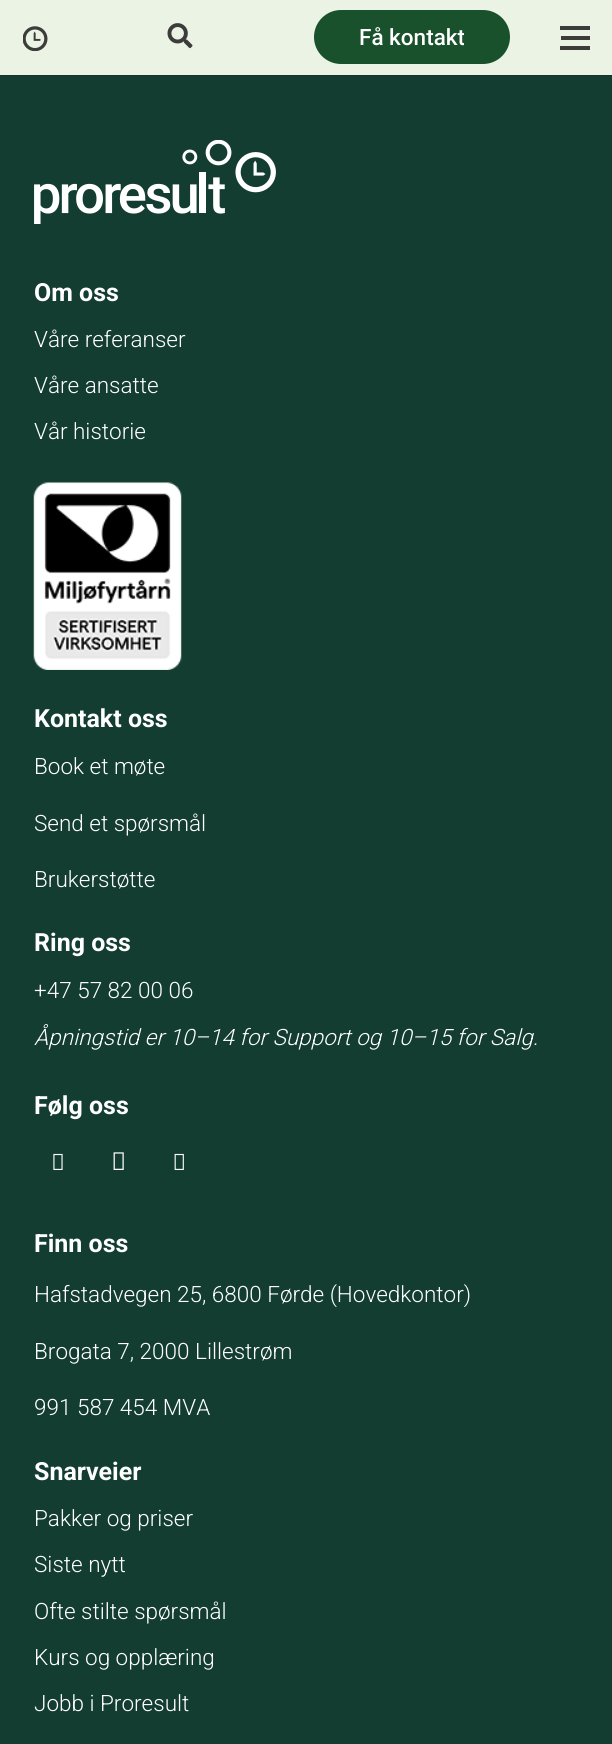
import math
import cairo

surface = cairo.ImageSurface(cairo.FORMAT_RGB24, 612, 1744)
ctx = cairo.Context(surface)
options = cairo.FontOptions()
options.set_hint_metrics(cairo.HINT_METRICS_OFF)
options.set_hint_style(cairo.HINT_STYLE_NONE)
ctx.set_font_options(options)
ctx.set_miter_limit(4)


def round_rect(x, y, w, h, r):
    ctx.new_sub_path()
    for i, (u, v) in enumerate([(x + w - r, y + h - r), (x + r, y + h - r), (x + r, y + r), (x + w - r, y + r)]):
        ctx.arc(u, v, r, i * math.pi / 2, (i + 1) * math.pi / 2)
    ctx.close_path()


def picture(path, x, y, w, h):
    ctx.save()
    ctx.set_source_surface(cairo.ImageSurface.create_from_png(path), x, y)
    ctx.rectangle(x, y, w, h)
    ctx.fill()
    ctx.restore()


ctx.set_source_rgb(0.075, 0.239, 0.188)
ctx.paint()
ctx.set_source_rgb(0.067, 0.22, 0.173)
ctx.new_path()
ctx.move_to(0, 75)
ctx.line_to(0, 76)
ctx.line_to(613, 76)
ctx.line_to(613, 1)
ctx.line_to(612, 1)
ctx.line_to(612, 75)
ctx.close_path()
ctx.fill()
ctx.set_source_rgb(0.918, 0.953, 0.898)
ctx.rectangle(0, 0, 612, 75)
ctx.fill()
picture("img1.png", 23, 26, 25, 25)
picture("img2.png", 167, 23, 26, 26)
ctx.set_source_rgb(0.098, 0.318, 0.173)
round_rect(314, 10, 196, 54, 27)
ctx.fill()
ctx.select_font_face("Roboto Medium")
ctx.set_font_size(22.5)
ctx.set_source_rgb(1, 1, 1)
ctx.move_to(359, 45)
ctx.show_text("Få kontakt")
ctx.set_source_rgb(0.235, 0.235, 0.231)
ctx.rectangle(561, 36, 29, 4)
ctx.fill()
ctx.rectangle(560, 26, 30, 4)
ctx.fill()
ctx.rectangle(560, 46, 30, 4)
ctx.fill()
picture("img3.png", 34, 140, 242, 84)
ctx.select_font_face("Roboto", cairo.FONT_SLANT_NORMAL, cairo.FONT_WEIGHT_BOLD)
ctx.set_font_size(25)
ctx.set_source_rgb(1, 1, 1)
ctx.move_to(34, 301)
ctx.show_text("Om oss")
ctx.select_font_face("Roboto Light")
ctx.set_font_size(22.5)
ctx.move_to(34, 347)
ctx.show_text("Våre referanser")
ctx.move_to(34, 393)
ctx.show_text("Våre ansatte")
ctx.move_to(34, 439)
ctx.show_text("Vår historie")
picture("img4.png", 33, 482, 149, 188)
ctx.select_font_face("Roboto", cairo.FONT_SLANT_NORMAL, cairo.FONT_WEIGHT_BOLD)
ctx.set_font_size(25)
ctx.move_to(34, 727)
ctx.show_text("Kontakt oss")
ctx.select_font_face("Roboto Light")
ctx.set_font_size(22.5)
ctx.move_to(34, 774)
ctx.show_text("Book et møte")
ctx.move_to(34, 831)
ctx.show_text("Send et spørsmål")
ctx.move_to(34, 887)
ctx.show_text("Brukerstøtte")
ctx.select_font_face("Roboto", cairo.FONT_SLANT_NORMAL, cairo.FONT_WEIGHT_BOLD)
ctx.set_font_size(25)
ctx.move_to(34, 951)
ctx.show_text("Ring oss")
ctx.select_font_face("Roboto Light")
ctx.set_font_size(22.5)
ctx.move_to(34, 998)
ctx.show_text("+47 57 82 00 06")
ctx.select_font_face("Roboto Light", cairo.FONT_SLANT_ITALIC)
ctx.move_to(34, 1045)
ctx.show_text("Åpningstid er 10–14 for Support og 10–15 for Salg.")
ctx.select_font_face("Roboto", cairo.FONT_SLANT_NORMAL, cairo.FONT_WEIGHT_BOLD)
ctx.set_font_size(25)
ctx.move_to(34, 1114)
ctx.show_text("Følg oss")
picture("img5.png", 53, 1153, 10, 17)
picture("img6.png", 113, 1152, 11, 18)
picture("img7.png", 174, 1153, 10, 17)
ctx.move_to(34, 1252)
ctx.show_text("Finn oss")
ctx.select_font_face("Roboto Light")
ctx.set_font_size(22.5)
ctx.move_to(34, 1302)
ctx.show_text("Hafstadvegen 25, 6800 Førde (Hovedkontor)")
ctx.move_to(34, 1359)
ctx.show_text("Brogata 7, 2000 Lillestrøm")
ctx.move_to(34, 1415)
ctx.show_text("991 587 454 MVA")
ctx.select_font_face("Roboto", cairo.FONT_SLANT_NORMAL, cairo.FONT_WEIGHT_BOLD)
ctx.set_font_size(25)
ctx.move_to(34, 1480)
ctx.show_text("Snarveier")
ctx.select_font_face("Roboto Light")
ctx.set_font_size(22.5)
ctx.move_to(34, 1526)
ctx.show_text("Pakker og priser")
ctx.move_to(34, 1572)
ctx.show_text("Siste nytt")
ctx.move_to(34, 1619)
ctx.show_text("Ofte stilte spørsmål")
ctx.move_to(34, 1665)
ctx.show_text("Kurs og opplæring")
ctx.move_to(34, 1711)
ctx.show_text("Jobb i Proresult")
surface.write_to_png("page.png")
